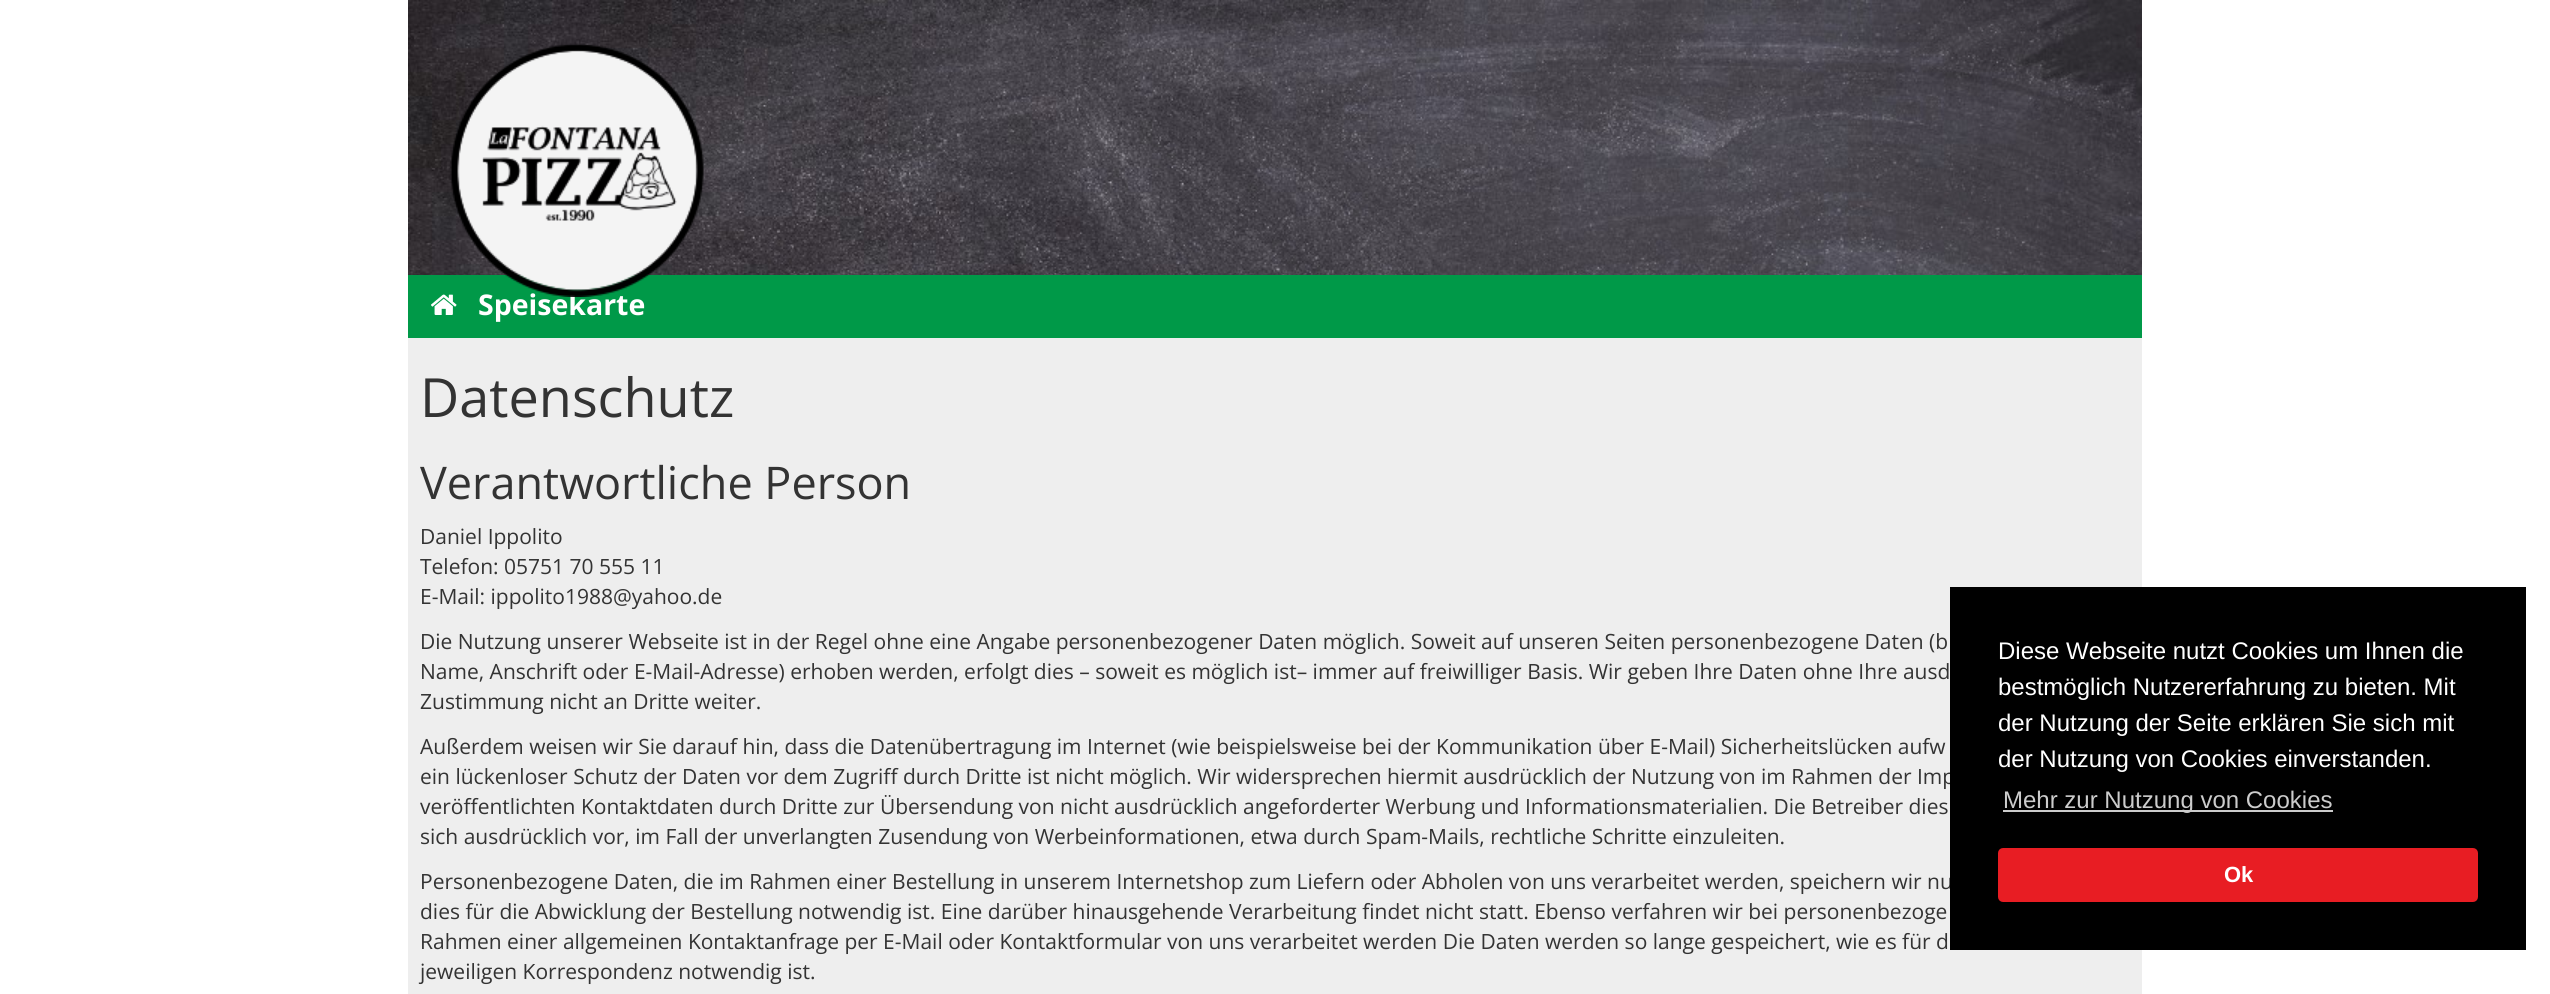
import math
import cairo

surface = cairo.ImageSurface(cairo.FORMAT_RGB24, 2550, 994)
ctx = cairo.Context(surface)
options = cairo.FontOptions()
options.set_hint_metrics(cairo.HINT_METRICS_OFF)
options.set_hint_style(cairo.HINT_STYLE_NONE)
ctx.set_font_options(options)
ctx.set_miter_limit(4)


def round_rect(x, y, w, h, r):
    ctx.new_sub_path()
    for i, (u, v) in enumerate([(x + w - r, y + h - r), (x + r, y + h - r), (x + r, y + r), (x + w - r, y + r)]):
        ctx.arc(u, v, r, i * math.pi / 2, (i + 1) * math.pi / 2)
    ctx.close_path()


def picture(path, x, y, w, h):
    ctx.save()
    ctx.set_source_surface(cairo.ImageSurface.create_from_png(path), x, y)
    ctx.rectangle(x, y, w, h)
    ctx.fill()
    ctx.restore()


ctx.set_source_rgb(1, 1, 1)
ctx.paint()
picture("img1.png", 408, 0, 1734, 275)
ctx.set_source_rgb(0, 0.6, 0.282)
ctx.rectangle(408, 275, 1734, 63)
ctx.fill()
picture("img3.png", 431, 294, 26, 21)
ctx.select_font_face("Open Sans", cairo.FONT_SLANT_NORMAL, cairo.FONT_WEIGHT_BOLD)
ctx.set_font_size(28.5)
ctx.set_source_rgb(1, 1, 1)
ctx.move_to(478, 315)
ctx.show_text("Speisekarte")
picture("img2.png", 450, 43, 254, 254)
ctx.set_source_rgb(0.933, 0.933, 0.933)
ctx.rectangle(408, 338, 1734, 656)
ctx.fill()
ctx.select_font_face("Open Sans")
ctx.set_font_size(54)
ctx.set_source_rgb(0.2, 0.2, 0.2)
ctx.move_to(420, 417)
ctx.show_text("Datenschutz")
ctx.set_font_size(45)
ctx.move_to(420, 499)
ctx.show_text("Verantwortliche Person")
ctx.set_font_size(21)
ctx.move_to(420, 544)
ctx.show_text("Daniel Ippolito")
ctx.move_to(420, 574)
ctx.show_text("Telefon: 05751 70 555 11")
ctx.move_to(420, 604)
ctx.show_text("E-Mail: ippolito1988@yahoo.de")
ctx.move_to(420, 649)
ctx.show_text("Die Nutzung unserer Webseite ist in der Regel ohne eine Angabe personenbezogener Daten möglich. Soweit auf unseren Seiten personenbezogene Daten (b")
ctx.move_to(420, 679)
ctx.show_text("Name, Anschrift oder E-Mail-Adresse) erhoben werden, erfolgt dies – soweit es möglich ist– immer auf freiwilliger Basis. Wir geben Ihre Daten ohne Ihre ausd")
ctx.move_to(420, 709)
ctx.show_text("Zustimmung nicht an Dritte weiter.")
ctx.move_to(420, 754)
ctx.show_text("Außerdem weisen wir Sie darauf hin, dass die Datenübertragung im Internet (wie beispielsweise bei der Kommunikation über E-Mail) Sicherheitslücken aufw")
ctx.move_to(420, 784)
ctx.show_text("ein lückenloser Schutz der Daten vor dem Zugriff durch Dritte ist nicht möglich. Wir widersprechen hiermit ausdrücklich der Nutzung von im Rahmen der Imp")
ctx.move_to(420, 814)
ctx.show_text("veröffentlichten Kontaktdaten durch Dritte zur Übersendung von nicht ausdrücklich angeforderter Werbung und Informationsmaterialien. Die Betreiber dies")
ctx.move_to(420, 844)
ctx.show_text("sich ausdrücklich vor, im Fall der unverlangten Zusendung von Werbeinformationen, etwa durch Spam-Mails, rechtliche Schritte einzuleiten.")
ctx.move_to(420, 889)
ctx.show_text("Personenbezogene Daten, die im Rahmen einer Bestellung in unserem Internetshop zum Liefern oder Abholen von uns verarbeitet werden, speichern wir nu")
ctx.move_to(420, 919)
ctx.show_text("dies für die Abwicklung der Bestellung notwendig ist. Eine darüber hinausgehende Verarbeitung findet nicht statt. Ebenso verfahren wir bei personenbezoge")
ctx.move_to(420, 949)
ctx.show_text("Rahmen einer allgemeinen Kontaktanfrage per E-Mail oder Kontaktformular von uns verarbeitet werden Die Daten werden so lange gespeichert, wie es für d")
ctx.move_to(420, 979)
ctx.show_text("jeweiligen Korrespondenz notwendig ist.")
ctx.set_source_rgb(0, 0, 0)
ctx.rectangle(1950, 587, 576, 363)
ctx.fill()
ctx.select_font_face("Liberation Sans")
ctx.set_font_size(24)
ctx.set_source_rgb(1, 1, 1)
ctx.move_to(1998, 659)
ctx.show_text("Diese Webseite nutzt Cookies um Ihnen die")
ctx.move_to(1998, 695)
ctx.show_text("bestmöglich Nutzererfahrung zu bieten. Mit")
ctx.move_to(1998, 731)
ctx.show_text("der Nutzung der Seite erklären Sie sich mit")
ctx.move_to(1998, 767)
ctx.show_text("der Nutzung von Cookies einverstanden.")
ctx.set_source_rgb(0.8, 0.8, 0.8)
ctx.rectangle(2003, 810, 330, 2)
ctx.fill()
ctx.move_to(2003, 808)
ctx.show_text("Mehr zur Nutzung von Cookies")
ctx.set_source_rgb(0.91, 0.114, 0.137)
round_rect(1999.5, 849.5, 477, 51, 3.5)
ctx.fill_preserve()
ctx.set_line_width(3)
ctx.stroke()
ctx.select_font_face("Liberation Sans", cairo.FONT_SLANT_NORMAL, cairo.FONT_WEIGHT_BOLD)
ctx.set_font_size(22)
ctx.set_source_rgb(1, 1, 1)
ctx.move_to(2224, 882)
ctx.show_text("Ok")
surface.write_to_png("page.png")
